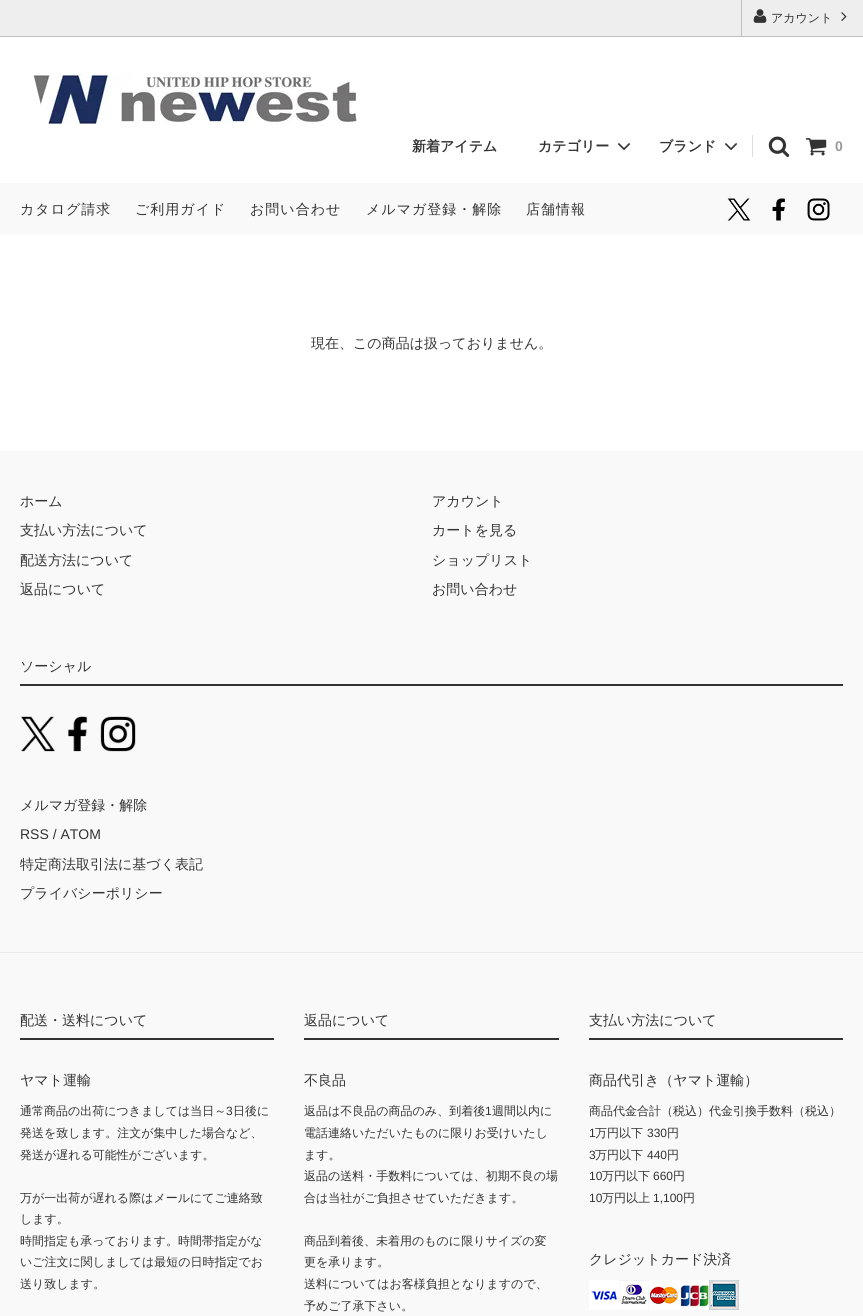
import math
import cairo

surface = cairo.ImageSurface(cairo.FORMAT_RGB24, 863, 1316)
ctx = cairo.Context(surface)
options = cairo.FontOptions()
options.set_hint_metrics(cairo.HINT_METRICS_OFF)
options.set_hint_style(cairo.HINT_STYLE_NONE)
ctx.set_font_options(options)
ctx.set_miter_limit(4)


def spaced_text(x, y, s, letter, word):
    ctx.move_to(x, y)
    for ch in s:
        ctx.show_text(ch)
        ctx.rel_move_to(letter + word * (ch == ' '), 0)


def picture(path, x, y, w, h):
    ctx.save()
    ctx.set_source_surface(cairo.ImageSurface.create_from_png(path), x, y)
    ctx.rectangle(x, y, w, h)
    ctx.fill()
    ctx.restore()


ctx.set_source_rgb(1, 1, 1)
ctx.paint()
ctx.set_source_rgb(0.933, 0.933, 0.933)
ctx.rectangle(0, 0, 863, 36)
ctx.fill()
ctx.set_source_rgb(0.745, 0.745, 0.745)
ctx.rectangle(0, 36, 863, 1)
ctx.fill()
ctx.rectangle(741, 0, 1, 36)
ctx.fill()
picture("img1.png", 753, 9, 14, 14)
ctx.select_font_face("WenQuanYi Zen Hei Medium")
ctx.set_font_size(12)
ctx.set_source_rgb(0.2, 0.2, 0.2)
ctx.move_to(771, 22)
ctx.show_text("アカウント")
picture("img2.png", 841, 12, 6, 9)
picture("img3.png", 32, 73, 325, 52)
ctx.select_font_face("WenQuanYi Zen Hei", cairo.FONT_SLANT_NORMAL, cairo.FONT_WEIGHT_BOLD)
ctx.set_font_size(14)
ctx.move_to(412, 151)
ctx.show_text("新着アイテム")
ctx.move_to(538, 151)
ctx.show_text("カテゴリー")
picture("img4.png", 617, 143, 14, 8)
ctx.set_source_rgb(0.867, 0.867, 0.867)
ctx.rectangle(752, 135, 1, 22)
ctx.fill()
ctx.set_source_rgb(0.2, 0.2, 0.2)
ctx.move_to(659, 151)
ctx.show_text("ブランド")
picture("img4.png", 724, 143, 14, 8)
picture("img5.png", 768, 136, 22, 21)
picture("img6.png", 805, 138, 22, 18)
ctx.select_font_face("Liberation Sans", cairo.FONT_SLANT_NORMAL, cairo.FONT_WEIGHT_BOLD)
ctx.set_source_rgb(0.6, 0.6, 0.6)
ctx.move_to(835, 151)
ctx.show_text("0")
ctx.set_source_rgb(0.973, 0.973, 0.973)
ctx.rectangle(0, 183, 863, 52)
ctx.fill()
ctx.select_font_face("WenQuanYi Zen Hei Medium")
ctx.set_source_rgb(0.2, 0.2, 0.2)
spaced_text(20, 214, "カタログ請求", 1, 0)
spaced_text(135, 214, "ご利用ガイド", 1, 0)
spaced_text(250, 214, "お問い合わせ", 1, 0)
spaced_text(366, 214, "メルマガ登録・解除", 1, 0)
spaced_text(526, 214, "店舗情報", 1, 0)
picture("img7.png", 727, 198, 24, 23)
picture("img8.png", 772, 198, 13, 23)
picture("img9.png", 807, 198, 23, 23)
ctx.move_to(311, 348)
ctx.show_text("現在、この商品は扱っておりません。")
ctx.set_source_rgb(0.973, 0.973, 0.973)
ctx.rectangle(0, 451, 863, 865)
ctx.fill()
ctx.set_source_rgb(0.2, 0.2, 0.2)
ctx.move_to(20, 506)
ctx.show_text("ホーム")
ctx.move_to(20, 535)
ctx.show_text("支払い方法について")
ctx.move_to(20, 565)
ctx.show_text("配送方法について")
ctx.move_to(20, 594)
ctx.show_text("返品について")
ctx.move_to(432, 506)
ctx.show_text("アカウント")
ctx.move_to(432, 535)
ctx.show_text("カートを見る")
ctx.move_to(432, 565)
ctx.show_text("ショップリスト")
ctx.move_to(432, 594)
ctx.show_text("お問い合わせ")
ctx.rectangle(20, 684, 823, 2)
ctx.fill()
ctx.move_to(20, 671)
ctx.show_text("ソーシャル")
picture("img10.png", 21, 716, 34, 36)
picture("img11.png", 68, 716, 20, 36)
picture("img12.png", 100, 716, 36, 36)
ctx.move_to(20, 810)
ctx.show_text("メルマガ登録・解除")
ctx.select_font_face("Liberation Sans")
ctx.move_to(20, 839)
ctx.show_text("RSS / ATOM")
ctx.select_font_face("WenQuanYi Zen Hei Medium")
ctx.move_to(20, 869)
ctx.show_text("特定商法取引法に基づく表記")
ctx.move_to(20, 898)
ctx.show_text("プライバシーポリシー")
ctx.set_source_rgb(0.918, 0.918, 0.918)
ctx.rectangle(0, 952, 863, 1)
ctx.fill()
ctx.set_source_rgb(0.2, 0.2, 0.2)
ctx.rectangle(20, 1038, 254, 2)
ctx.fill()
ctx.move_to(20, 1025)
ctx.show_text("配送・送料について")
ctx.move_to(20, 1085)
ctx.show_text("ヤマト運輸")
ctx.set_font_size(12)
ctx.move_to(20, 1115)
ctx.show_text("通常商品の出荷につきましては当日～")
ctx.select_font_face("Liberation Sans")
ctx.move_to(226, 1115)
ctx.show_text("3")
ctx.select_font_face("WenQuanYi Zen Hei Medium")
ctx.move_to(233, 1115)
ctx.show_text("日後に")
ctx.move_to(20, 1137)
ctx.show_text("発送を致します。注文が集中した場合など、")
ctx.move_to(20, 1159)
ctx.show_text("発送が遅れる可能性がございます。")
ctx.move_to(20, 1202)
ctx.show_text("万が一出荷が遅れる際はメールにてご連絡致")
ctx.move_to(20, 1223)
ctx.show_text("します。")
ctx.move_to(20, 1245)
ctx.show_text("時間指定も承っております。時間帯指定がな")
ctx.move_to(20, 1266)
ctx.show_text("いご注文に関しましては最短の日時指定でお")
ctx.move_to(20, 1288)
ctx.show_text("送り致します。")
ctx.rectangle(304, 1038, 255, 2)
ctx.fill()
ctx.set_font_size(14)
ctx.move_to(304, 1025)
ctx.show_text("返品について")
ctx.move_to(304, 1085)
ctx.show_text("不良品")
ctx.set_font_size(12)
ctx.move_to(304, 1115)
ctx.show_text("返品は不良品の商品のみ、到着後")
ctx.select_font_face("Liberation Sans")
ctx.move_to(485, 1115)
ctx.show_text("1")
ctx.select_font_face("WenQuanYi Zen Hei Medium")
ctx.move_to(492, 1115)
ctx.show_text("週間以内に")
ctx.move_to(304, 1137)
ctx.show_text("電話連絡いただいたものに限りお受けいたし")
ctx.move_to(304, 1159)
ctx.show_text("ます。")
ctx.move_to(304, 1180)
ctx.show_text("返品の送料・手数料については、初期不良の場")
ctx.move_to(304, 1202)
ctx.show_text("合は当社がご負担させていただきます。")
ctx.move_to(304, 1245)
ctx.show_text("商品到着後、未着用のものに限りサイズの変")
ctx.move_to(304, 1266)
ctx.show_text("更を承ります。")
ctx.move_to(304, 1288)
ctx.show_text("送料についてはお客様負担となりますので、")
ctx.move_to(304, 1310)
ctx.show_text("予めご了承下さい。")
ctx.rectangle(589, 1038, 254, 2)
ctx.fill()
ctx.set_font_size(14)
ctx.move_to(589, 1025)
ctx.show_text("支払い方法について")
ctx.move_to(589, 1085)
ctx.show_text("商品代引き（ヤマト運輸）")
ctx.set_font_size(12)
ctx.move_to(589, 1115)
ctx.show_text("商品代金合計（税込）代金引換手数料（税込）")
ctx.select_font_face("Liberation Sans")
ctx.move_to(589, 1137)
ctx.show_text("1")
ctx.select_font_face("WenQuanYi Zen Hei Medium")
ctx.move_to(595, 1137)
ctx.show_text("万円以下")
ctx.select_font_face("Liberation Sans")
ctx.move_to(647, 1137)
ctx.show_text("330")
ctx.select_font_face("WenQuanYi Zen Hei Medium")
ctx.move_to(667, 1137)
ctx.show_text("円")
ctx.select_font_face("Liberation Sans")
ctx.move_to(589, 1159)
ctx.show_text("3")
ctx.select_font_face("WenQuanYi Zen Hei Medium")
ctx.move_to(595, 1159)
ctx.show_text("万円以下")
ctx.select_font_face("Liberation Sans")
ctx.move_to(647, 1159)
ctx.show_text("440")
ctx.select_font_face("WenQuanYi Zen Hei Medium")
ctx.move_to(667, 1159)
ctx.show_text("円")
ctx.select_font_face("Liberation Sans")
ctx.move_to(589, 1180)
ctx.show_text("10")
ctx.select_font_face("WenQuanYi Zen Hei Medium")
ctx.move_to(602, 1180)
ctx.show_text("万円以下")
ctx.select_font_face("Liberation Sans")
ctx.move_to(653, 1180)
ctx.show_text("660")
ctx.select_font_face("WenQuanYi Zen Hei Medium")
ctx.move_to(673, 1180)
ctx.show_text("円")
ctx.select_font_face("Liberation Sans")
ctx.move_to(589, 1202)
ctx.show_text("10")
ctx.select_font_face("WenQuanYi Zen Hei Medium")
ctx.move_to(602, 1202)
ctx.show_text("万円以上")
ctx.select_font_face("Liberation Sans")
ctx.move_to(653, 1202)
ctx.show_text("1,100")
ctx.select_font_face("WenQuanYi Zen Hei Medium")
ctx.move_to(683, 1202)
ctx.show_text("円")
ctx.set_font_size(14)
ctx.move_to(589, 1264)
ctx.show_text("クレジットカード決済")
picture("img13.png", 589, 1280, 30, 30)
picture("img14.png", 619, 1280, 30, 30)
picture("img15.png", 649, 1280, 30, 30)
picture("img16.png", 679, 1280, 30, 30)
picture("img17.png", 709, 1280, 30, 30)
surface.write_to_png("page.png")
